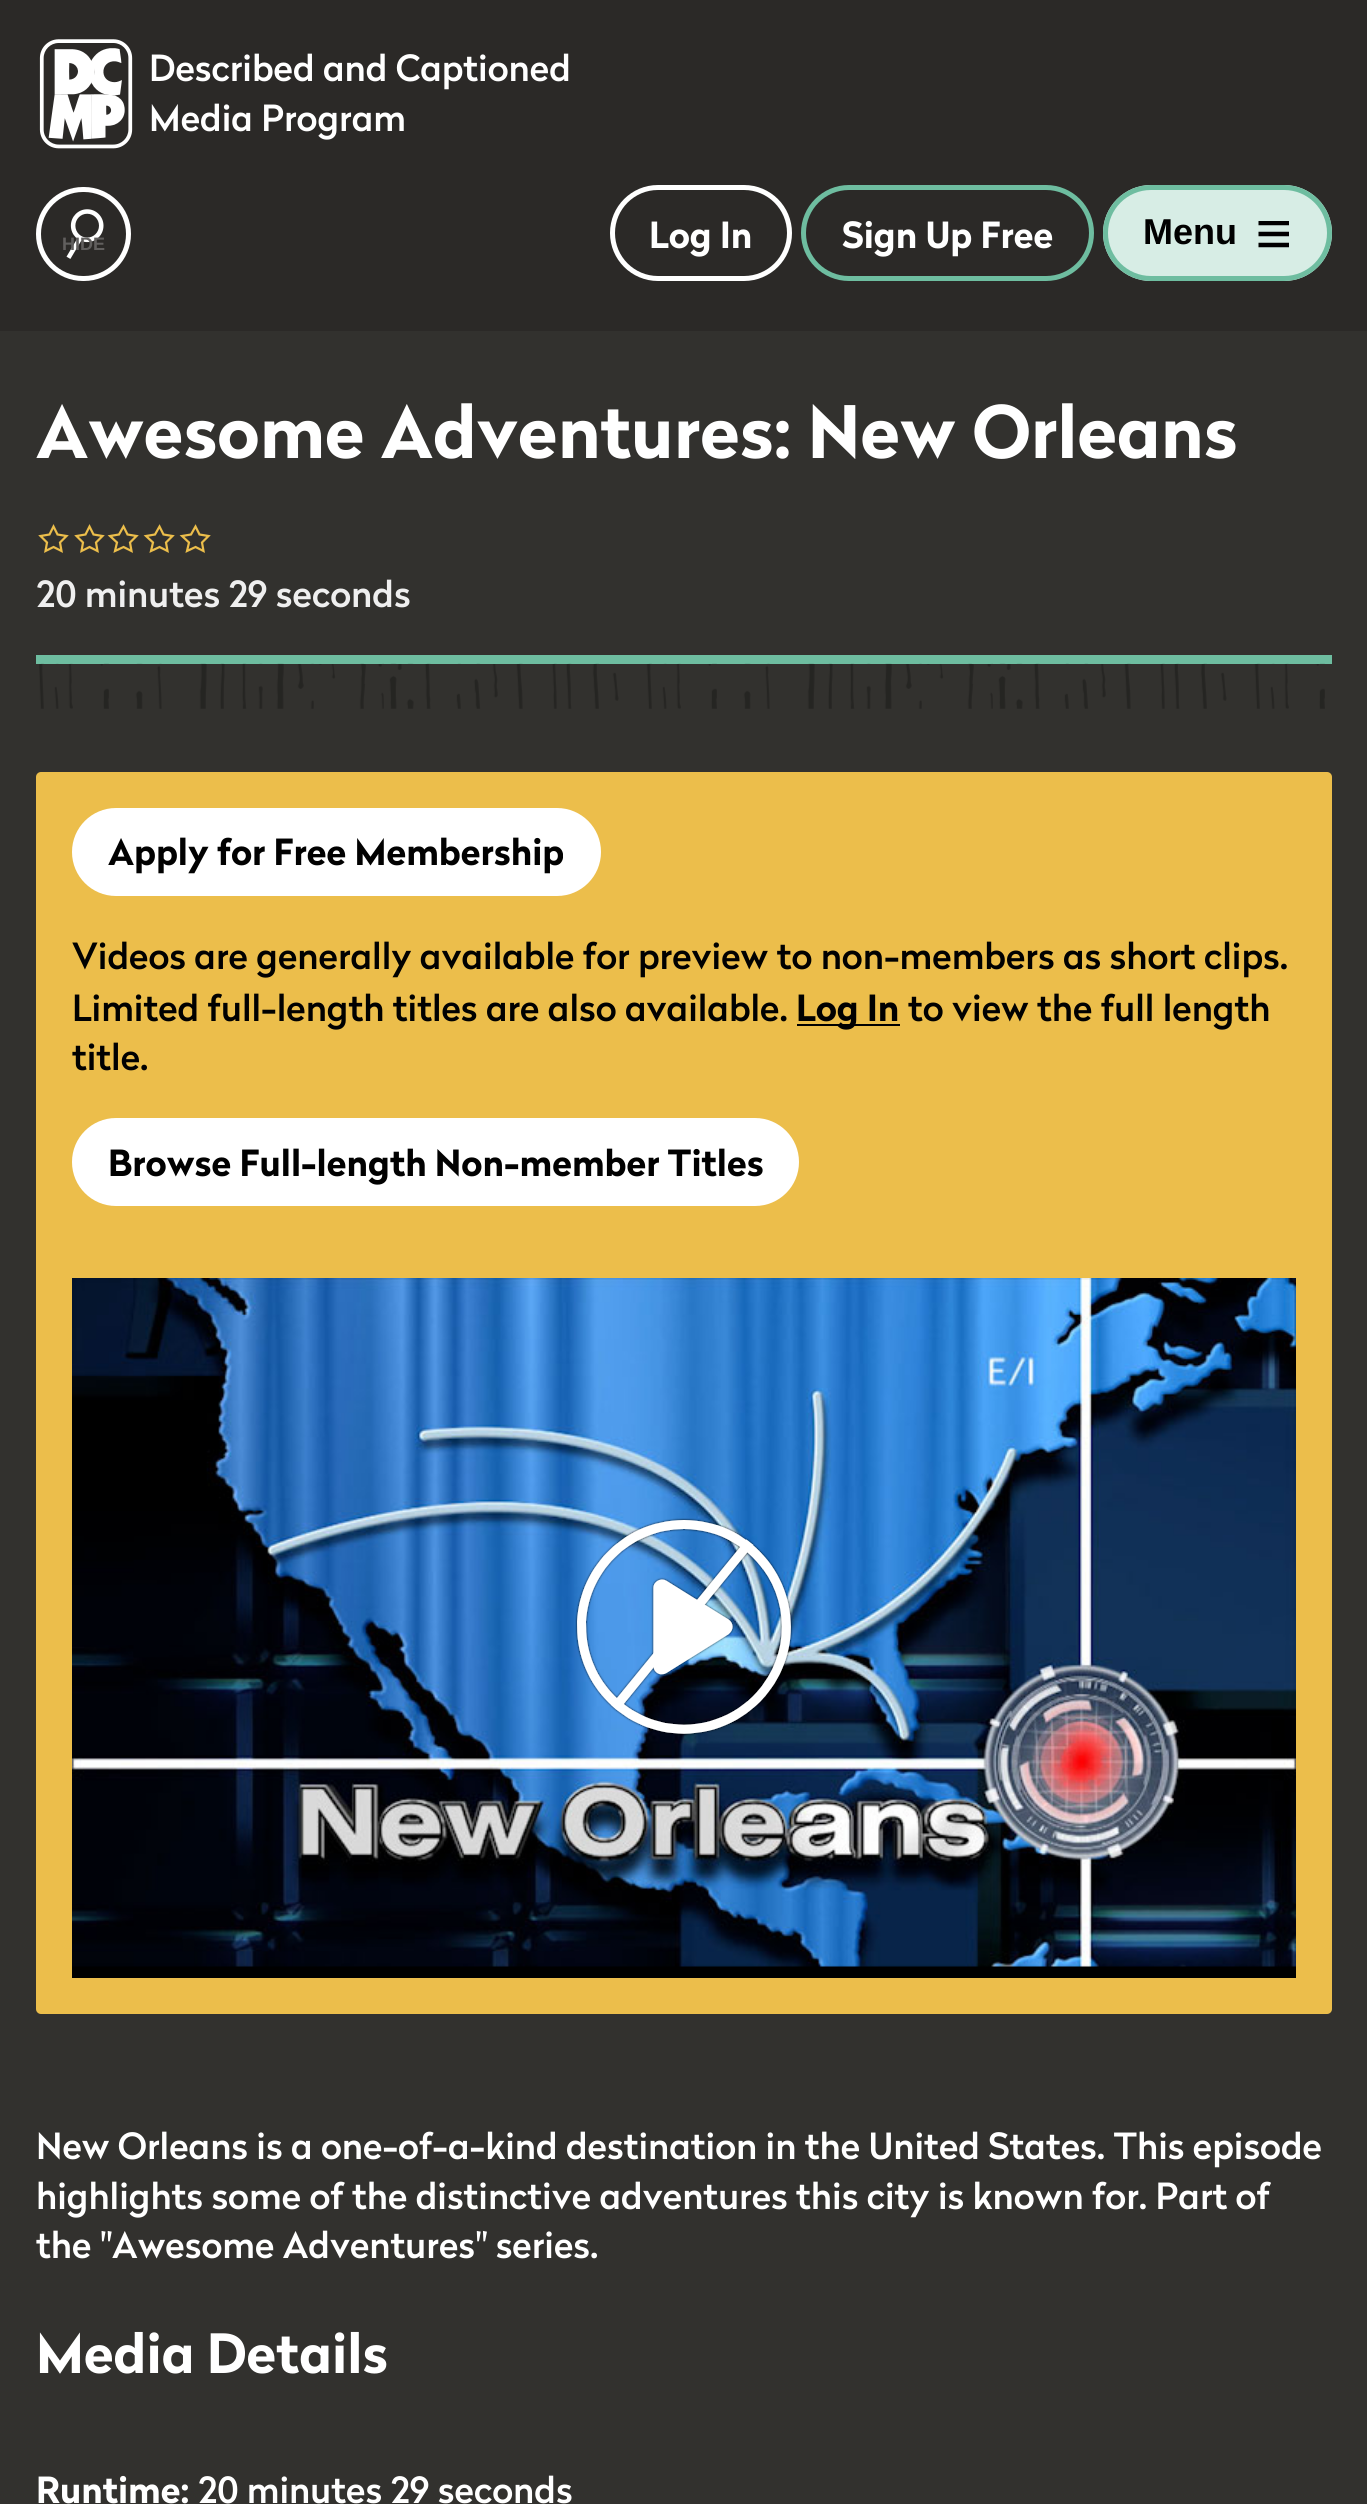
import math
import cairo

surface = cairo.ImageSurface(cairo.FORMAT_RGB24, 1367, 2504)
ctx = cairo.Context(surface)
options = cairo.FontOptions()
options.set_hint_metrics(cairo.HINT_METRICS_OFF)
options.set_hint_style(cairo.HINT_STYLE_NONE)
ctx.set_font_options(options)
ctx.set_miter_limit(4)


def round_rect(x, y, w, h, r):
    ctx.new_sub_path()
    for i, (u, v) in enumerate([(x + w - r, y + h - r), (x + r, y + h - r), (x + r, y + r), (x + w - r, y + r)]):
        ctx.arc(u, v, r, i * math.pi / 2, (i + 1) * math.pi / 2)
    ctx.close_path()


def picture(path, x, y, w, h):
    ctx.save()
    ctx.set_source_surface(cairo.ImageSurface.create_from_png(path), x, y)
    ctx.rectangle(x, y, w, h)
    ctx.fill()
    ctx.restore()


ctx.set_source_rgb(0.196, 0.192, 0.18)
ctx.paint()
ctx.set_source_rgb(0.169, 0.161, 0.153)
ctx.rectangle(0, 0, 1367, 331)
ctx.fill()
picture("img1.png", 39, 39, 94, 110)
ctx.select_font_face("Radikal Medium")
ctx.set_font_size(36)
ctx.set_source_rgb(1, 1, 1)
ctx.move_to(149, 81)
ctx.show_text("Described and Captioned")
ctx.move_to(149, 131)
ctx.show_text("Media Program")
picture("img2.png", 66, 209, 38, 50)
round_rect(38.5, 189.5, 90, 89, 44.5)
ctx.set_line_width(5)
ctx.stroke()
ctx.select_font_face("Liberation Sans", cairo.FONT_SLANT_NORMAL, cairo.FONT_WEIGHT_BOLD)
ctx.set_font_size(18)
ctx.set_source_rgb(0.38, 0.373, 0.369)
ctx.move_to(62, 250)
ctx.show_text("HIDE")
round_rect(612.5, 187.5, 177, 91, 45.5)
ctx.set_source_rgb(1, 1, 1)
ctx.stroke()
ctx.select_font_face("Radikal", cairo.FONT_SLANT_NORMAL, cairo.FONT_WEIGHT_BOLD)
ctx.set_font_size(36)
ctx.move_to(649, 248)
ctx.show_text("Log In")
round_rect(803.5, 187.5, 288, 91, 45.5)
ctx.set_source_rgb(0.431, 0.741, 0.627)
ctx.stroke()
ctx.set_source_rgb(1, 1, 1)
ctx.move_to(842, 248)
ctx.show_text("Sign Up Free")
ctx.set_source_rgb(0.843, 0.929, 0.898)
round_rect(1103, 185, 229, 96, 48)
ctx.fill()
ctx.save()
ctx.rectangle(1258, 221, 31, 27)
ctx.clip()
ctx.new_path()
ctx.move_to(1258.5, 223)
ctx.line_to(1289, 223)
ctx.move_to(1258.5, 234)
ctx.line_to(1289, 234)
ctx.move_to(1258.5, 245)
ctx.line_to(1289, 245)
ctx.set_source_rgb(0, 0, 0)
ctx.set_line_width(4.5)
ctx.stroke()
ctx.restore()
round_rect(1105.5, 187.5, 224, 91, 45.5)
ctx.set_source_rgb(0.431, 0.741, 0.627)
ctx.stroke()
ctx.select_font_face("Liberation Sans", cairo.FONT_SLANT_NORMAL, cairo.FONT_WEIGHT_BOLD)
ctx.set_source_rgb(0.004, 0.004, 0.004)
ctx.move_to(1143, 244)
ctx.show_text("Menu")
ctx.set_source_rgb(0.431, 0.741, 0.627)
ctx.rectangle(36, 655, 1296, 9)
ctx.fill()
ctx.select_font_face("Radikal", cairo.FONT_SLANT_NORMAL, cairo.FONT_WEIGHT_BOLD)
ctx.set_font_size(72)
ctx.set_source_rgb(1, 1, 1)
ctx.move_to(36, 458)
ctx.show_text("Awesome Adventures: New Orleans")
ctx.new_path()
ctx.move_to(53.5, 547)
ctx.line_to(45.5, 551)
ctx.line_to(47, 542.5)
ctx.line_to(40.5, 536)
ctx.line_to(49.5, 534.5)
ctx.line_to(53.5, 526.5)
ctx.line_to(57.5, 534.5)
ctx.line_to(66.5, 536)
ctx.line_to(60, 542.5)
ctx.line_to(61.5, 551)
ctx.close_path()
ctx.set_source_rgb(0.922, 0.745, 0.294)
ctx.set_line_width(2.2)
ctx.stroke()
ctx.new_path()
ctx.move_to(89.5, 547)
ctx.line_to(81.5, 551)
ctx.line_to(83, 542.5)
ctx.line_to(76.5, 536)
ctx.line_to(85.5, 534.5)
ctx.line_to(89.5, 526.5)
ctx.line_to(93.5, 534.5)
ctx.line_to(102.5, 536)
ctx.line_to(96, 542.5)
ctx.line_to(97.5, 551)
ctx.close_path()
ctx.stroke()
ctx.new_path()
ctx.move_to(123.5, 547)
ctx.line_to(115, 551)
ctx.line_to(117, 542.5)
ctx.line_to(110, 536)
ctx.line_to(119, 534.5)
ctx.line_to(123.5, 526.5)
ctx.line_to(127.5, 534.5)
ctx.line_to(136.5, 536)
ctx.line_to(130, 542.5)
ctx.line_to(131.5, 551)
ctx.close_path()
ctx.stroke()
ctx.new_path()
ctx.move_to(159.5, 547)
ctx.line_to(151, 551)
ctx.line_to(153, 542.5)
ctx.line_to(146, 536)
ctx.line_to(155, 534.5)
ctx.line_to(159.5, 526.5)
ctx.line_to(163.5, 534.5)
ctx.line_to(172.5, 536)
ctx.line_to(166, 542.5)
ctx.line_to(167.5, 551)
ctx.close_path()
ctx.stroke()
ctx.new_path()
ctx.move_to(195.5, 547)
ctx.line_to(187, 551)
ctx.line_to(189, 542.5)
ctx.line_to(182, 536)
ctx.line_to(191, 534.5)
ctx.line_to(195.5, 526.5)
ctx.line_to(199.5, 534.5)
ctx.line_to(208.5, 536)
ctx.line_to(202, 542.5)
ctx.line_to(203.5, 551)
ctx.close_path()
ctx.stroke()
ctx.select_font_face("Radikal Medium")
ctx.set_font_size(36)
ctx.set_source_rgb(0.937, 0.937, 0.937)
ctx.move_to(36, 607)
ctx.show_text("20 minutes 29 seconds")
picture("img3.png", 39, 663, 1286, 46)
ctx.set_source_rgb(0.922, 0.745, 0.294)
round_rect(36, 772, 1296, 1242, 5)
ctx.fill()
ctx.set_source_rgb(1, 1, 1)
round_rect(72, 808, 529, 88, 44)
ctx.fill()
ctx.select_font_face("Radikal", cairo.FONT_SLANT_NORMAL, cairo.FONT_WEIGHT_BOLD)
ctx.set_source_rgb(0.004, 0.004, 0.004)
ctx.move_to(108, 865)
ctx.show_text("Apply for Free Membership")
ctx.select_font_face("Radikal Medium")
ctx.move_to(72, 969)
ctx.show_text("Videos are generally available for preview to non-members as short clips.")
ctx.move_to(72, 1021)
ctx.show_text("Limited full-length titles are also available.")
ctx.rectangle(797, 1024, 103, 2)
ctx.fill()
ctx.select_font_face("Radikal", cairo.FONT_SLANT_NORMAL, cairo.FONT_WEIGHT_BOLD)
ctx.move_to(796, 1021)
ctx.show_text("Log In")
ctx.select_font_face("Radikal Medium")
ctx.move_to(908, 1021)
ctx.show_text("to view the full length")
ctx.move_to(72, 1070)
ctx.show_text("title.")
ctx.set_source_rgb(1, 1, 1)
round_rect(72, 1118, 727, 88, 44)
ctx.fill()
ctx.select_font_face("Radikal", cairo.FONT_SLANT_NORMAL, cairo.FONT_WEIGHT_BOLD)
ctx.set_source_rgb(0.004, 0.004, 0.004)
ctx.move_to(108, 1176)
ctx.show_text("Browse Full-length Non-member Titles")
ctx.set_source_rgb(0, 0, 0)
ctx.rectangle(72, 1966, 1224, 12)
ctx.fill()
picture("img4.png", 72, 1278, 1224, 689)
picture("img5.png", 575, 1518, 218, 218)
ctx.select_font_face("Radikal Medium")
ctx.set_source_rgb(1, 1, 1)
ctx.move_to(36, 2159)
ctx.show_text("New Orleans is a one-of-a-kind destination in the United States. This episode")
ctx.move_to(36, 2209)
ctx.show_text("highlights some of the distinctive adventures this city is known for. Part of")
ctx.move_to(36, 2258)
ctx.show_text("the \"Awesome Adventures\" series.")
ctx.select_font_face("Radikal", cairo.FONT_SLANT_NORMAL, cairo.FONT_WEIGHT_BOLD)
ctx.set_font_size(54)
ctx.move_to(36, 2373)
ctx.show_text("Media Details")
ctx.set_font_size(36)
ctx.move_to(36, 2503)
ctx.show_text("Runtime:")
ctx.select_font_face("Radikal Medium")
ctx.move_to(198, 2503)
ctx.show_text("20 minutes 29 seconds")
surface.write_to_png("page.png")
